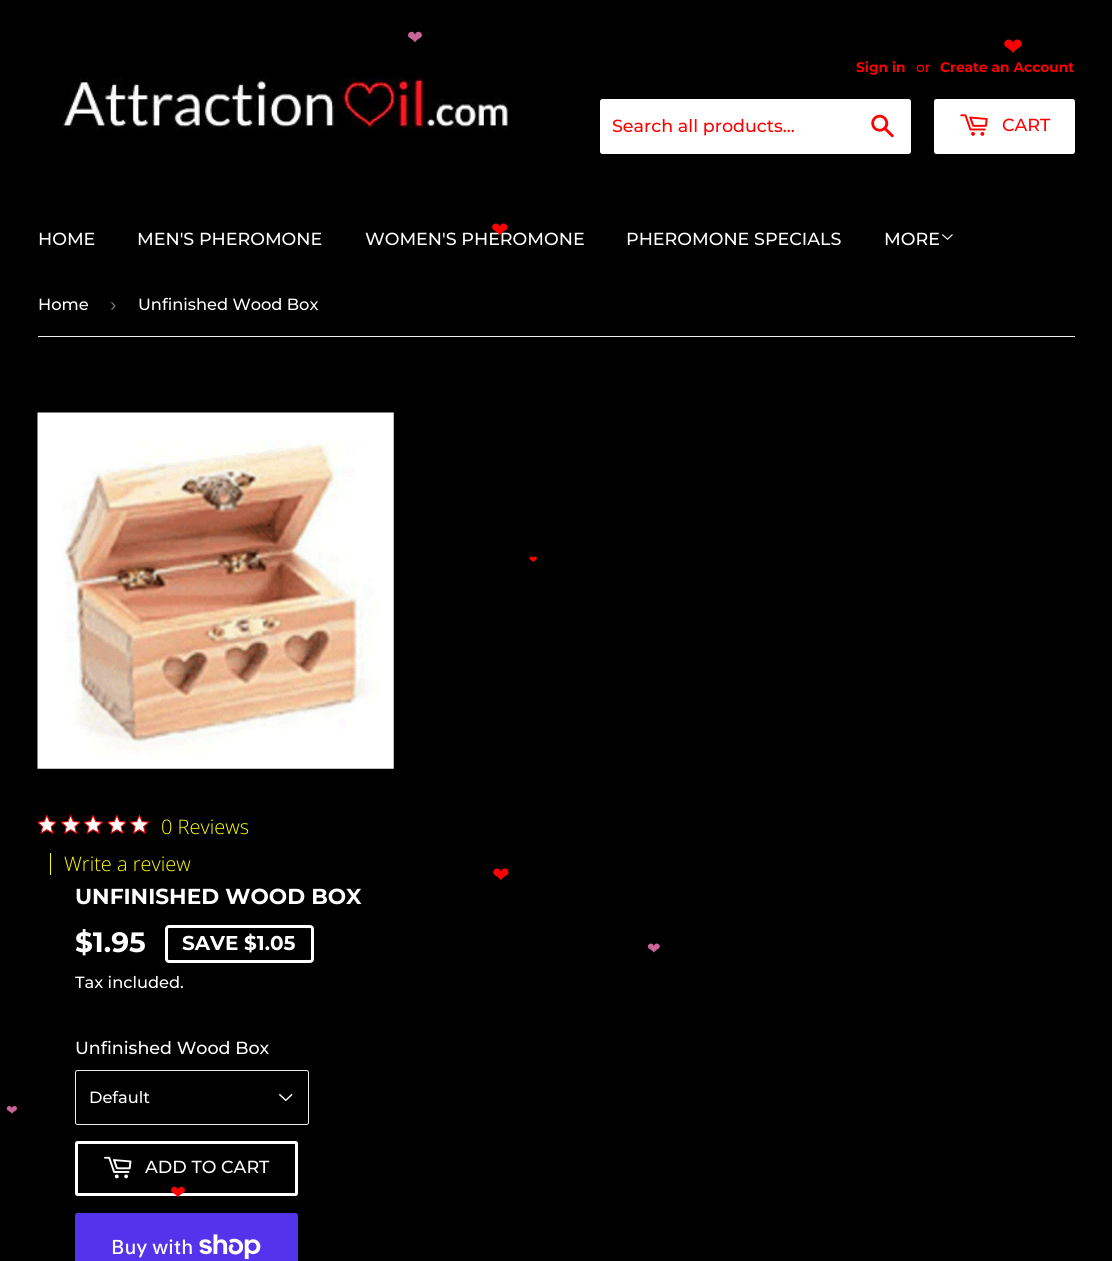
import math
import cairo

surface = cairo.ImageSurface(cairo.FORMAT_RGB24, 1112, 1261)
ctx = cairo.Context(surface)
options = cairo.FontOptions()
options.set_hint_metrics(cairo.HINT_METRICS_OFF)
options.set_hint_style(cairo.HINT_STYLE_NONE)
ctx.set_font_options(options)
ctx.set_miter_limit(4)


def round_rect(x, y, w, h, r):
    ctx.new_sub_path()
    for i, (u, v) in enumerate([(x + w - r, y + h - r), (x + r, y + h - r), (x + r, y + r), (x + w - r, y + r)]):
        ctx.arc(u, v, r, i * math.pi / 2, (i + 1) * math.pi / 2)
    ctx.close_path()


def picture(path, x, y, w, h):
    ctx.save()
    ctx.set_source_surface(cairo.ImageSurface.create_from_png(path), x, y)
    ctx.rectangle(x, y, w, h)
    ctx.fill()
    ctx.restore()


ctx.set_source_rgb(0, 0, 0)
ctx.paint()
ctx.select_font_face("DejaVu Sans")
ctx.set_font_size(19)
ctx.set_source_rgb(0.8, 0.4, 0.6)
ctx.move_to(407, 44)
ctx.show_text("❤")
ctx.set_font_size(24)
ctx.set_source_rgb(1, 0, 0)
ctx.move_to(1003, 55)
ctx.show_text("❤")
picture("img1.png", 59, 77, 450, 53)
ctx.select_font_face("Montserrat", cairo.FONT_SLANT_NORMAL, cairo.FONT_WEIGHT_BOLD)
ctx.set_font_size(13.75)
ctx.move_to(856, 72)
ctx.show_text("Sign in")
ctx.select_font_face("Montserrat Medium")
ctx.move_to(916, 72)
ctx.show_text("or")
ctx.select_font_face("Montserrat", cairo.FONT_SLANT_NORMAL, cairo.FONT_WEIGHT_BOLD)
ctx.move_to(940, 72)
ctx.show_text("Create an Account")
ctx.set_source_rgb(1, 1, 1)
round_rect(600, 99, 311, 55, 2.5)
ctx.fill()
ctx.select_font_face("Montserrat Medium")
ctx.set_font_size(17.5)
ctx.set_source_rgb(1, 0, 0)
ctx.move_to(612, 132)
ctx.show_text("Search all products...")
picture("img2.png", 871, 114, 23, 24)
ctx.set_source_rgb(1, 1, 1)
round_rect(934, 99, 141, 55, 2.5)
ctx.fill()
picture("img3.png", 960, 114, 28, 22)
ctx.set_source_rgb(1, 0, 0)
ctx.move_to(1002, 131)
ctx.show_text("CART")
ctx.set_source_rgb(1, 1, 1)
ctx.move_to(38, 245)
ctx.show_text("HOME")
ctx.move_to(137, 245)
ctx.show_text("MEN'S PHEROMONE")
ctx.move_to(365, 245)
ctx.show_text("WOMEN'S PHEROMONE")
ctx.move_to(626, 245)
ctx.show_text("PHEROMONE SPECIALS")
ctx.move_to(884, 245)
ctx.show_text("MORE")
picture("img4.png", 942, 234, 11, 6)
ctx.select_font_face("DejaVu Sans")
ctx.set_font_size(21)
ctx.set_source_rgb(1, 0, 0)
ctx.move_to(491, 237)
ctx.show_text("❤")
ctx.set_source_rgb(0.925, 0.925, 0.925)
ctx.rectangle(38, 336, 1037, 1)
ctx.fill()
ctx.select_font_face("Montserrat Medium")
ctx.set_font_size(16.25)
ctx.set_source_rgb(1, 1, 1)
ctx.move_to(38, 310)
ctx.show_text("Home")
ctx.select_font_face("Liberation Sans")
ctx.set_font_size(19)
ctx.set_source_rgb(0.463, 0.463, 0.463)
ctx.move_to(110, 311)
ctx.show_text("›")
ctx.select_font_face("Montserrat Medium")
ctx.set_font_size(16.25)
ctx.set_source_rgb(1, 1, 1)
ctx.move_to(138, 310)
ctx.show_text("Unfinished Wood Box")
picture("img5.png", 37, 412, 357, 357)
picture("img6.png", 38, 815, 18, 19)
picture("img7.png", 61, 815, 19, 19)
picture("img8.png", 84, 815, 19, 19)
picture("img6.png", 108, 815, 18, 19)
picture("img9.png", 130, 815, 19, 19)
ctx.select_font_face("Open Sans Light")
ctx.set_font_size(20)
ctx.set_source_rgb(1, 1, 0)
ctx.move_to(161, 834)
ctx.show_text("0 Reviews")
ctx.rectangle(50, 853, 1, 22)
ctx.fill()
ctx.move_to(64, 871)
ctx.show_text("Write a review")
ctx.select_font_face("Montserrat", cairo.FONT_SLANT_NORMAL, cairo.FONT_WEIGHT_BOLD)
ctx.set_font_size(21.7)
ctx.set_source_rgb(1, 1, 1)
ctx.move_to(75, 904)
ctx.show_text("UNFINISHED WOOD BOX")
ctx.set_font_size(28)
ctx.move_to(75, 952)
ctx.show_text("$1.95")
round_rect(166.5, 926.5, 146, 35, 2.5)
ctx.set_line_width(3)
ctx.stroke()
ctx.set_font_size(20)
ctx.move_to(182, 950)
ctx.show_text("SAVE $1.05")
ctx.select_font_face("Montserrat Medium")
ctx.set_font_size(16.25)
ctx.move_to(75, 988)
ctx.show_text("Tax included.")
ctx.set_font_size(17.5)
ctx.move_to(75, 1054)
ctx.show_text("Unfinished Wood Box")
picture("img10.png", 279, 1093, 14, 9)
round_rect(75.5, 1070.5, 233, 54, 2)
ctx.set_source_rgb(0.925, 0.925, 0.925)
ctx.set_line_width(1)
ctx.stroke()
ctx.set_font_size(16.25)
ctx.set_source_rgb(1, 1, 1)
ctx.move_to(89, 1103)
ctx.show_text("Default")
round_rect(76.5, 1142.5, 220, 52, 1)
ctx.set_line_width(3)
ctx.stroke()
picture("img11.png", 104, 1156, 28, 23)
ctx.set_font_size(17.5)
ctx.move_to(145, 1173)
ctx.show_text("ADD TO CART")
ctx.set_source_rgb(0.329, 0.2, 0.922)
round_rect(75, 1213, 223, 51, 2.5)
ctx.fill()
ctx.select_font_face("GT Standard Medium")
ctx.set_font_size(20)
ctx.set_source_rgb(1, 1, 1)
ctx.move_to(111, 1254)
ctx.show_text("Buy with")
picture("img12.png", 199, 1234, 62, 25)
ctx.select_font_face("DejaVu Sans")
ctx.set_font_size(10)
ctx.set_source_rgb(1, 0, 0)
ctx.move_to(529, 563)
ctx.show_text("❤")
ctx.set_font_size(21)
ctx.move_to(492, 882)
ctx.show_text("❤")
ctx.set_font_size(16.25)
ctx.set_source_rgb(0.8, 0.4, 0.6)
ctx.move_to(647, 954)
ctx.show_text("❤")
ctx.set_font_size(14)
ctx.move_to(6, 1115)
ctx.show_text("❤")
ctx.set_font_size(19)
ctx.set_source_rgb(1, 0, 0)
ctx.move_to(170, 1199)
ctx.show_text("❤")
surface.write_to_png("page.png")
